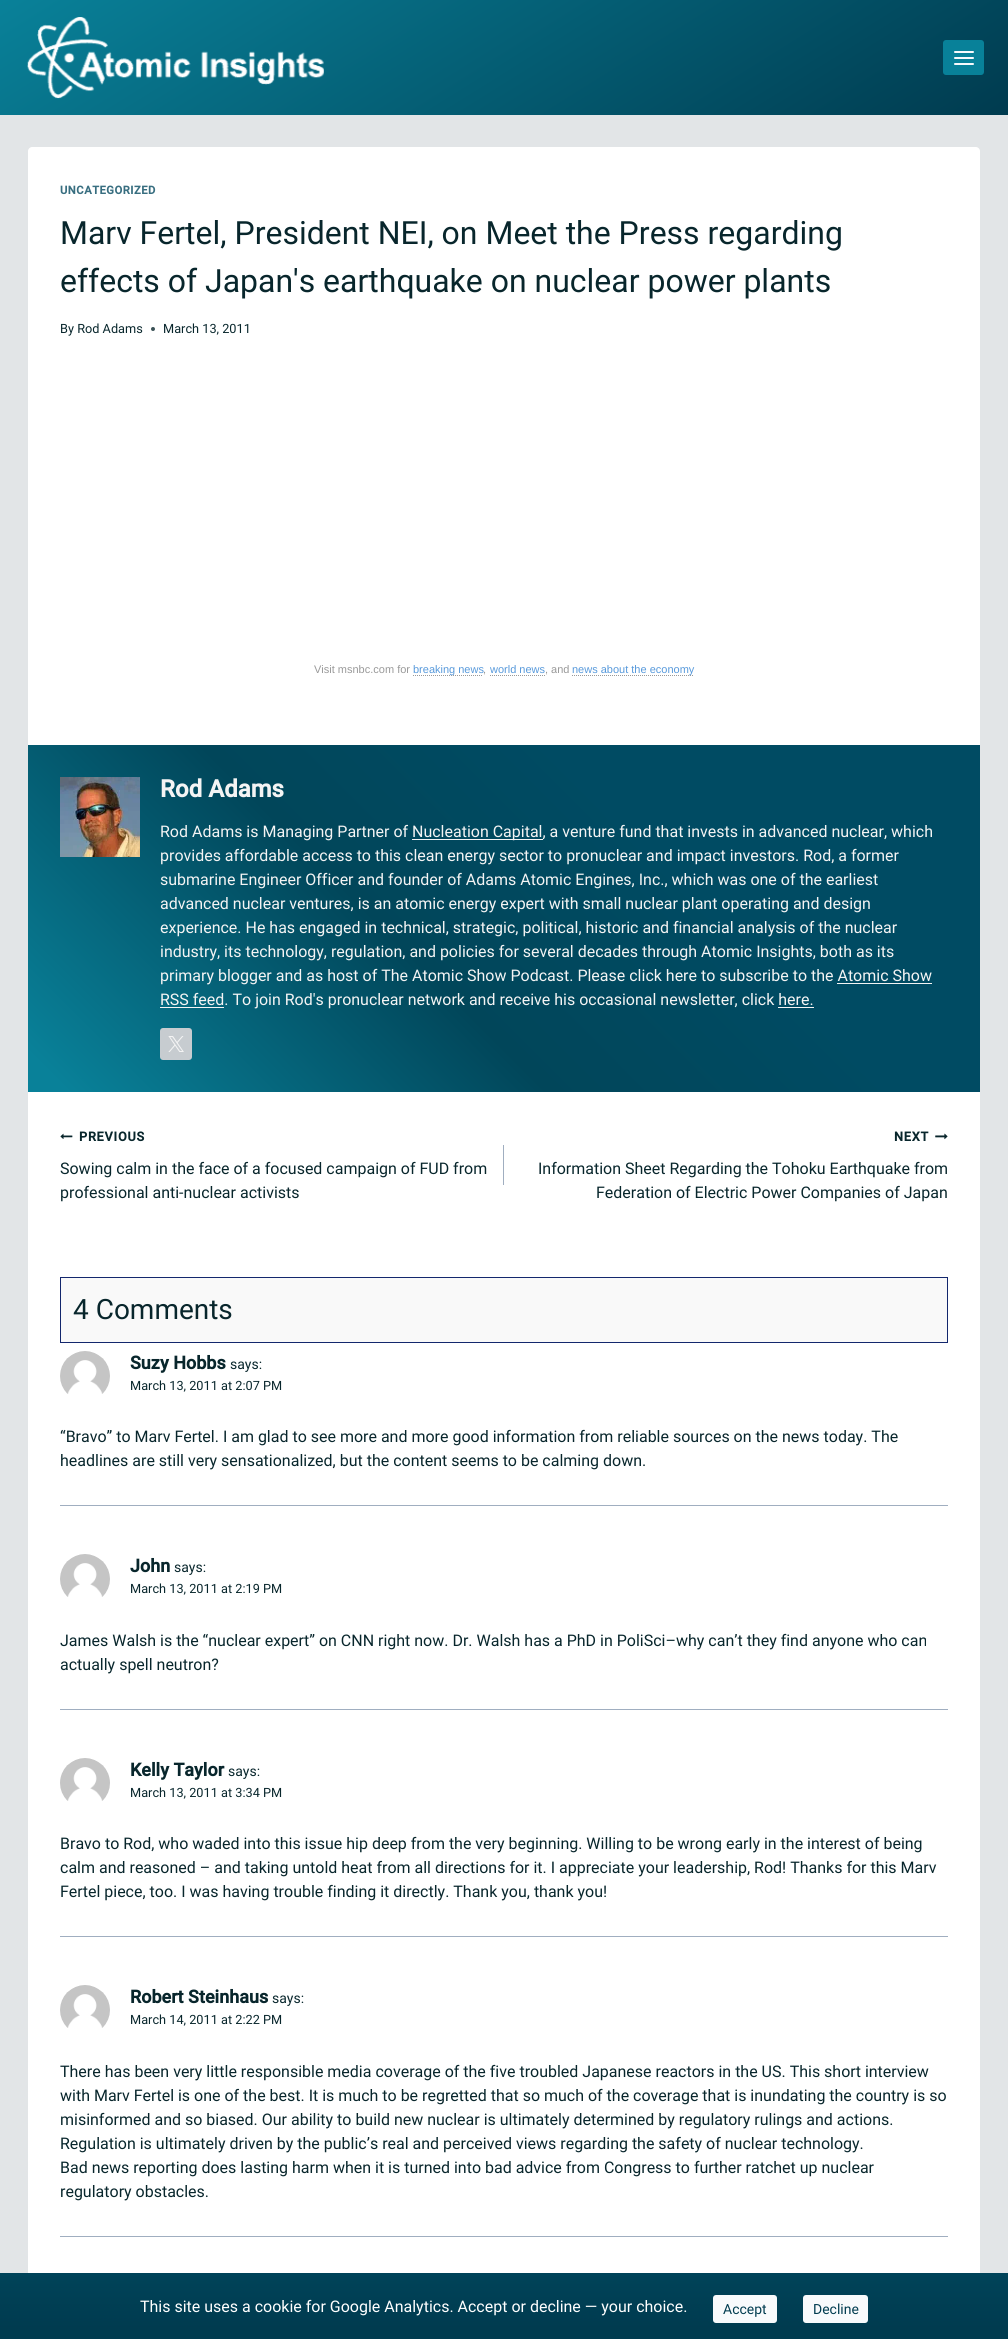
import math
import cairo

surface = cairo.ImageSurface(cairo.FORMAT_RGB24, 1008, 2339)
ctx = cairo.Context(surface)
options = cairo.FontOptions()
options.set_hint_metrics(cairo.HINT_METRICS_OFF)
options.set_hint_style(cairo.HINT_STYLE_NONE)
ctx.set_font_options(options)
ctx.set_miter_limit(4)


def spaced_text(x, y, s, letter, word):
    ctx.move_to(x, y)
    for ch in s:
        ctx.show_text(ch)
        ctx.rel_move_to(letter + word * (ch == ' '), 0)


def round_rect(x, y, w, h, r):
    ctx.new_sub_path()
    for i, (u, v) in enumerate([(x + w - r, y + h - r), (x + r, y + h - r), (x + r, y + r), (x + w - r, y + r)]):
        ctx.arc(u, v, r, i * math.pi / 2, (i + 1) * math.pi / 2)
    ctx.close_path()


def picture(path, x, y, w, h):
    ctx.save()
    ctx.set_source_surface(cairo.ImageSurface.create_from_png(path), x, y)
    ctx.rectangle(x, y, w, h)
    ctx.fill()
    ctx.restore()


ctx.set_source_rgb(0.886, 0.898, 0.906)
ctx.paint()
gradient = cairo.LinearGradient(671, 325, 337, -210)
gradient.add_color_stop_rgba(0, 0, 0.231, 0.31, 1)
gradient.add_color_stop_rgba(1, 0.035, 0.506, 0.6, 1)
ctx.set_source(gradient)
ctx.rectangle(0, 0, 1008, 115)
ctx.fill()
picture("img1.png", 27, 17, 297, 82)
ctx.set_source_rgb(0.035, 0.506, 0.6)
round_rect(943, 40, 41, 35, 3)
ctx.fill()
picture("img2.png", 954, 51, 20, 14)
ctx.set_source_rgb(1, 1, 1)
ctx.new_path()
ctx.move_to(32, 147)
ctx.line_to(976, 147)
ctx.curve_to(978, 147, 980, 149, 980, 151)
ctx.line_to(980, 745)
ctx.line_to(28, 745)
ctx.line_to(28, 151)
ctx.curve_to(28, 149, 30, 147, 32, 147)
ctx.close_path()
ctx.fill()
ctx.select_font_face("Roboto", cairo.FONT_SLANT_NORMAL, cairo.FONT_WEIGHT_BOLD)
ctx.set_font_size(11.25)
ctx.set_source_rgb(0.22, 0.431, 0.502)
spaced_text(60, 194, "UNCATEGORIZED", 0.5, 0)
ctx.select_font_face("Roboto")
ctx.set_font_size(32)
ctx.set_source_rgb(0.035, 0.149, 0.173)
ctx.move_to(60, 244)
ctx.show_text("Marv Fertel, President NEI, on Meet the Press regarding")
ctx.move_to(60, 292)
ctx.show_text("effects of Japan's earthquake on nuclear power plants")
ctx.set_font_size(12.75)
ctx.move_to(60, 333)
ctx.show_text("By Rod Adams")
ctx.set_source_rgb(0.227, 0.318, 0.337)
ctx.new_path()
ctx.arc(153, 329, 2, 0, 2 * math.pi)
ctx.fill()
ctx.set_source_rgb(0.035, 0.149, 0.173)
ctx.move_to(163, 333)
ctx.show_text("March 13, 2011")
ctx.select_font_face("Liberation Sans")
ctx.set_font_size(11)
ctx.set_source_rgb(0.6, 0.6, 0.6)
ctx.move_to(314, 673)
ctx.show_text("Visit msnbc.com for")
ctx.new_path()
ctx.move_to(413, 675.5)
ctx.line_to(483, 675.5)
ctx.set_line_width(1)
ctx.set_dash([1, 1])
ctx.stroke()
ctx.set_source_rgb(0.341, 0.6, 0.859)
ctx.move_to(413, 673)
ctx.show_text("breaking news")
ctx.set_source_rgb(0.6, 0.6, 0.6)
ctx.move_to(483, 673)
ctx.show_text(",")
ctx.set_source_rgb(0.341, 0.6, 0.859)
ctx.move_to(490, 673)
ctx.show_text("world news")
ctx.new_path()
ctx.move_to(490, 675.5)
ctx.line_to(545, 675.5)
ctx.set_source_rgb(0.6, 0.6, 0.6)
ctx.stroke()
ctx.move_to(545, 673)
ctx.show_text(", and")
ctx.new_path()
ctx.move_to(572, 675.5)
ctx.line_to(694, 675.5)
ctx.stroke()
ctx.set_source_rgb(0.341, 0.6, 0.859)
ctx.move_to(572, 673)
ctx.show_text("news about the economy")
gradient = cairo.LinearGradient(179, 1243, 829, 594)
gradient.add_color_stop_rgba(0.03, 0.035, 0.506, 0.6, 1)
gradient.add_color_stop_rgba(0.4, 0.004, 0.275, 0.353, 1)
gradient.add_color_stop_rgba(0.67, 0, 0.294, 0.388, 1)
ctx.set_source(gradient)
ctx.rectangle(28, 745, 952, 347)
ctx.fill()
picture("img3.png", 60, 777, 80, 80)
ctx.select_font_face("Roboto", cairo.FONT_SLANT_NORMAL, cairo.FONT_WEIGHT_BOLD)
ctx.set_font_size(24)
ctx.set_source_rgb(0.957, 0.957, 0.957)
ctx.move_to(160, 797)
ctx.show_text("Rod Adams")
ctx.select_font_face("Roboto")
ctx.set_font_size(16)
ctx.move_to(160, 837)
ctx.show_text("Rod Adams is Managing Partner of")
ctx.rectangle(412, 839, 131, 1)
ctx.fill()
ctx.move_to(412, 837)
ctx.show_text("Nucleation Capital, a venture fund that invests in advanced nuclear, which")
ctx.move_to(160, 861)
ctx.show_text("provides affordable access to this clean energy sector to pronuclear and impact investors. Rod, a former")
ctx.move_to(160, 885)
ctx.show_text("submarine Engineer Officer and founder of Adams Atomic Engines, Inc., which was one of the earliest")
ctx.move_to(160, 909)
ctx.show_text("advanced nuclear ventures, is an atomic energy expert with small nuclear plant operating and design")
ctx.move_to(160, 933)
ctx.show_text("experience. He has engaged in technical, strategic, political, historic and financial analysis of the nuclear")
ctx.move_to(160, 957)
ctx.show_text("industry, its technology, regulation, and policies for several decades through Atomic Insights, both as its")
ctx.move_to(160, 981)
ctx.show_text("primary blogger and as host of The Atomic Show Podcast. Please click here to subscribe to the Atomic Show")
ctx.rectangle(160, 1007, 64, 1)
ctx.fill()
ctx.move_to(160, 1005)
ctx.show_text("RSS feed. To join Rod's pronuclear network and receive his occasional newsletter, click here.")
ctx.rectangle(837, 983, 95, 1)
ctx.fill()
ctx.rectangle(778, 1007, 36, 1)
ctx.fill()
ctx.set_source_rgb(0.78, 0.8, 0.816)
round_rect(160, 1028, 32, 32, 3)
ctx.fill()
picture("img4.png", 168, 1036, 16, 16)
ctx.set_source_rgb(1, 1, 1)
ctx.rectangle(28, 1092, 952, 1181)
ctx.fill()
picture("img5.png", 60, 1133, 13, 6)
ctx.select_font_face("Roboto", cairo.FONT_SLANT_NORMAL, cairo.FONT_WEIGHT_BOLD)
ctx.set_font_size(12.75)
ctx.set_source_rgb(0.035, 0.149, 0.173)
spaced_text(79, 1141, "PREVIOUS", 0.75, 0)
ctx.select_font_face("Roboto")
ctx.set_font_size(16)
ctx.move_to(60, 1174)
ctx.show_text("Sowing calm in the face of a focused campaign of FUD from")
ctx.move_to(60, 1198)
ctx.show_text("professional anti-nuclear activists")
ctx.set_source_rgb(0.627, 0.682, 0.753)
ctx.rectangle(503, 1145, 1, 40)
ctx.fill()
ctx.select_font_face("Roboto", cairo.FONT_SLANT_NORMAL, cairo.FONT_WEIGHT_BOLD)
ctx.set_font_size(12.75)
ctx.set_source_rgb(0.035, 0.149, 0.173)
spaced_text(894, 1141, "NEXT", 0.75, 0)
picture("img6.png", 935, 1133, 13, 7)
ctx.select_font_face("Roboto")
ctx.set_font_size(16)
ctx.move_to(538, 1174)
ctx.show_text("Information Sheet Regarding the Tohoku Earthquake from")
ctx.move_to(596, 1198)
ctx.show_text("Federation of Electric Power Companies of Japan")
ctx.set_source_rgb(0.976, 0.976, 0.976)
ctx.rectangle(60.5, 1277.5, 887, 65)
ctx.fill_preserve()
ctx.set_source_rgb(0.078, 0.153, 0.427)
ctx.set_dash([])
ctx.stroke()
ctx.set_font_size(28)
ctx.set_source_rgb(0.035, 0.149, 0.173)
ctx.move_to(73, 1319)
ctx.show_text("4 Comments")
ctx.set_source_rgb(0.627, 0.682, 0.753)
ctx.rectangle(60, 1505, 888, 1)
ctx.fill()
picture("img7.png", 60, 1351, 50, 43)
ctx.select_font_face("Roboto", cairo.FONT_SLANT_NORMAL, cairo.FONT_WEIGHT_BOLD)
ctx.set_font_size(18)
ctx.set_source_rgb(0.035, 0.149, 0.173)
ctx.move_to(130, 1369)
ctx.show_text("Suzy Hobbs")
ctx.select_font_face("Roboto")
ctx.set_font_size(14)
ctx.move_to(230, 1369)
ctx.show_text("says:")
ctx.set_font_size(12.75)
ctx.move_to(130, 1390)
ctx.show_text("March 13, 2011 at 2:07 PM")
ctx.set_font_size(16)
ctx.move_to(60, 1442)
ctx.show_text("“Bravo” to Marv Fertel. I am glad to see more and more good information from reliable sources on the news today. The")
ctx.move_to(60, 1466)
ctx.show_text("headlines are still very sensationalized, but the content seems to be calming down.")
ctx.set_source_rgb(0.627, 0.682, 0.753)
ctx.rectangle(60, 1709, 888, 1)
ctx.fill()
picture("img7.png", 60, 1554, 50, 43)
ctx.select_font_face("Roboto", cairo.FONT_SLANT_NORMAL, cairo.FONT_WEIGHT_BOLD)
ctx.set_font_size(18)
ctx.set_source_rgb(0.035, 0.149, 0.173)
ctx.move_to(130, 1572)
ctx.show_text("John")
ctx.select_font_face("Roboto")
ctx.set_font_size(14)
ctx.move_to(174, 1572)
ctx.show_text("says:")
ctx.set_font_size(12.75)
ctx.move_to(130, 1593)
ctx.show_text("March 13, 2011 at 2:19 PM")
ctx.set_font_size(16)
ctx.move_to(60, 1646)
ctx.show_text("James Walsh is the “nuclear expert” on CNN right now. Dr. Walsh has a PhD in PoliSci–why can’t they find anyone who can")
ctx.move_to(60, 1670)
ctx.show_text("actually spell neutron?")
ctx.set_source_rgb(0.627, 0.682, 0.753)
ctx.rectangle(60, 1936, 888, 1)
ctx.fill()
picture("img8.png", 60, 1758, 50, 43)
ctx.select_font_face("Roboto", cairo.FONT_SLANT_NORMAL, cairo.FONT_WEIGHT_BOLD)
ctx.set_font_size(18)
ctx.set_source_rgb(0.035, 0.149, 0.173)
ctx.move_to(130, 1776)
ctx.show_text("Kelly Taylor")
ctx.select_font_face("Roboto")
ctx.set_font_size(14)
ctx.move_to(228, 1776)
ctx.show_text("says:")
ctx.set_font_size(12.75)
ctx.move_to(130, 1797)
ctx.show_text("March 13, 2011 at 3:34 PM")
ctx.set_font_size(16)
ctx.move_to(60, 1849)
ctx.show_text("Bravo to Rod, who waded into this issue hip deep from the very beginning. Willing to be wrong early in the interest of being")
ctx.move_to(60, 1873)
ctx.show_text("calm and reasoned – and taking untold heat from all directions for it. I appreciate your leadership, Rod! Thanks for this Marv")
ctx.move_to(60, 1897)
ctx.show_text("Fertel piece, too. I was having trouble finding it directly. Thank you, thank you!")
ctx.set_source_rgb(0.627, 0.682, 0.753)
ctx.rectangle(60, 2236, 888, 1)
ctx.fill()
picture("img7.png", 60, 1985, 50, 43)
ctx.select_font_face("Roboto", cairo.FONT_SLANT_NORMAL, cairo.FONT_WEIGHT_BOLD)
ctx.set_font_size(18)
ctx.set_source_rgb(0.035, 0.149, 0.173)
ctx.move_to(130, 2003)
ctx.show_text("Robert Steinhaus")
ctx.select_font_face("Roboto")
ctx.set_font_size(14)
ctx.move_to(272, 2003)
ctx.show_text("says:")
ctx.set_font_size(12.75)
ctx.move_to(130, 2024)
ctx.show_text("March 14, 2011 at 2:22 PM")
ctx.set_font_size(16)
ctx.move_to(60, 2077)
ctx.show_text("There has been very little responsible media coverage of the five troubled Japanese reactors in the US. This short interview")
ctx.move_to(60, 2101)
ctx.show_text("with Marv Fertel is one of the best. It is much to be regretted that so much of the coverage that is inundating the country is so")
ctx.move_to(60, 2125)
ctx.show_text("misinformed and so biased. Our ability to build new nuclear is ultimately determined by regulatory rulings and actions.")
ctx.move_to(60, 2149)
ctx.show_text("Regulation is ultimately driven by the public’s real and perceived views regarding the safety of nuclear technology.")
ctx.move_to(60, 2173)
ctx.show_text("Bad news reporting does lasting harm when it is turned into bad advice from Congress to further ratchet up nuclear")
ctx.move_to(60, 2197)
ctx.show_text("regulatory obstacles.")
ctx.set_source_rgb(0, 0.231, 0.31)
ctx.rectangle(0, 2329, 1008, 10)
ctx.fill()
gradient = cairo.LinearGradient(504, 2273, 504, 2329)
gradient.add_color_stop_rgba(0, 0, 0.263, 0.349, 1)
gradient.add_color_stop_rgba(1, 0, 0.231, 0.31, 1)
ctx.set_source(gradient)
ctx.rectangle(0, 2273, 1008, 56)
ctx.fill()
ctx.set_source_rgb(1, 1, 1)
ctx.move_to(140, 2312)
ctx.show_text("This site uses a cookie for Google Analytics. Accept or decline — your choice.")
ctx.set_source_rgb(0.969, 0.98, 0.988)
round_rect(713, 2295, 64, 28, 3)
ctx.fill()
ctx.set_font_size(14)
ctx.set_source_rgb(0, 0.231, 0.31)
ctx.move_to(723, 2314)
ctx.show_text("Accept")
ctx.set_source_rgb(0.969, 0.98, 0.988)
round_rect(803, 2295, 65, 28, 3)
ctx.fill()
ctx.set_source_rgb(0, 0.231, 0.31)
ctx.move_to(813, 2314)
ctx.show_text("Decline")
surface.write_to_png("page.png")
